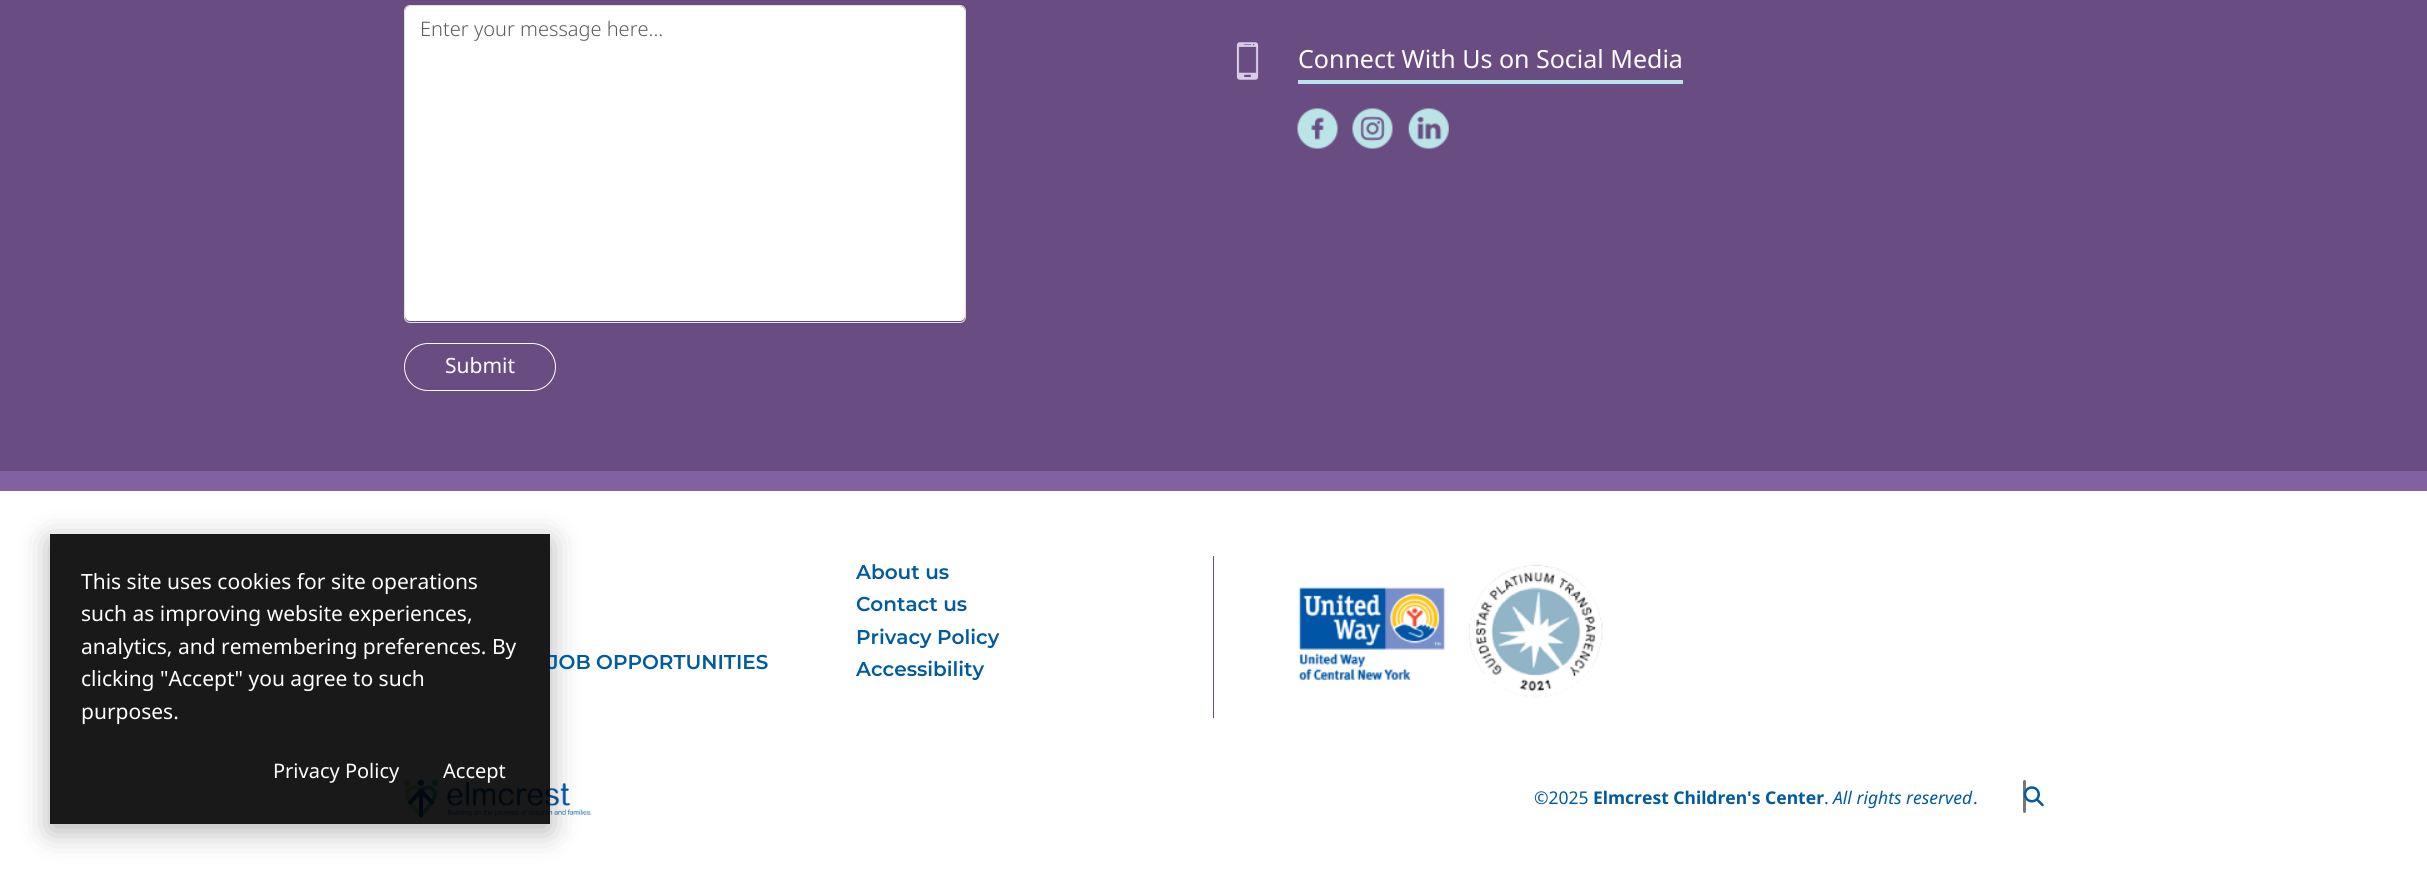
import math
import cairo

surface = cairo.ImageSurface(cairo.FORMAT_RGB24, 2427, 873)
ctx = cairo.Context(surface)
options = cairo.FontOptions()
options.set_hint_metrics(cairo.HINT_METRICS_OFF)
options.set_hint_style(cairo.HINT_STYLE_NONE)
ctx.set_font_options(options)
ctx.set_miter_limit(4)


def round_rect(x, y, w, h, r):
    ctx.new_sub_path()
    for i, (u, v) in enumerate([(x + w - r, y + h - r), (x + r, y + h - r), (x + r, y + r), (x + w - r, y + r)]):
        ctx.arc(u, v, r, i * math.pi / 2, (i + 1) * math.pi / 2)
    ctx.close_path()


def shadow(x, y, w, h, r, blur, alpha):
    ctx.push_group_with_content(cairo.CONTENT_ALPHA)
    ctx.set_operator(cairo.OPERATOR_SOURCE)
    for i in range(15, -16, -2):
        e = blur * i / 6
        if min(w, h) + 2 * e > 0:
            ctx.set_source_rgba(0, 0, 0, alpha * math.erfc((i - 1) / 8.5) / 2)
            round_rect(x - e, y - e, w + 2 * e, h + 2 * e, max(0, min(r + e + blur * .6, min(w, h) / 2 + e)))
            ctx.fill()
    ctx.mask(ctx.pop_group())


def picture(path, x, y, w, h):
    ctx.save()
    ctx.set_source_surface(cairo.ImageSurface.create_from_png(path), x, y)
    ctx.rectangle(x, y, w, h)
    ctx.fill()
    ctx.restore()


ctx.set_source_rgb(1, 1, 1)
ctx.paint()
ctx.set_source_rgb(0.412, 0.302, 0.51)
ctx.rectangle(0, 0, 2427, 471)
ctx.fill()
ctx.set_source_rgb(0.51, 0.38, 0.631)
ctx.rectangle(0, 471, 2427, 20)
ctx.fill()
ctx.set_source_rgb(1, 1, 1)
round_rect(405, 6, 560, 315, 5)
ctx.fill()
round_rect(404.5, 5.5, 561, 317, 5.5)
ctx.set_source_rgb(0.871, 0.886, 0.902)
ctx.set_line_width(1)
ctx.stroke()
ctx.select_font_face("Noto Sans Light")
ctx.set_font_size(20)
ctx.set_source_rgb(0.349, 0.361, 0.373)
ctx.move_to(420, 36)
ctx.show_text("Enter your message here...")
round_rect(404.5, 343.5, 151, 47, 23.5)
ctx.set_source_rgb(1, 1, 1)
ctx.stroke()
ctx.select_font_face("Noto Sans")
ctx.set_font_size(21)
ctx.move_to(445, 373)
ctx.show_text("Submit")
picture("img1.png", 1236, 42, 23, 38)
ctx.set_font_size(25)
ctx.move_to(1298, 68)
ctx.show_text("Connect With Us on Social Media")
ctx.set_source_rgb(0.725, 0.89, 0.898)
ctx.rectangle(1298, 80, 385, 4)
ctx.fill()
picture("img2.png", 1297, 108, 41, 41)
picture("img3.png", 1352, 108, 41, 41)
picture("img4.png", 1408, 108, 41, 41)
picture("img7.png", 403, 779, 189, 39)
ctx.save()
ctx.set_fill_rule(cairo.FILL_RULE_EVEN_ODD)
ctx.new_path()
ctx.move_to(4, 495)
ctx.line_to(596, 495)
ctx.line_to(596, 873)
ctx.line_to(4, 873)
ctx.close_path()
ctx.move_to(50, 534)
ctx.line_to(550, 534)
ctx.line_to(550, 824)
ctx.line_to(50, 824)
ctx.close_path()
ctx.clip()
ctx.set_source_rgb(0, 0, 0)
shadow(50, 541, 500, 290, 0, 15, 0.3)
ctx.restore()
ctx.select_font_face("Montserrat SemiBold")
ctx.set_font_size(20)
ctx.set_source_rgb(0, 0.357, 0.624)
ctx.move_to(548, 669)
ctx.show_text("JOB OPPORTUNITIES")
ctx.set_source_rgba(0, 0, 0, 0.9)
ctx.rectangle(50, 534, 500, 290)
ctx.fill()
ctx.select_font_face("Noto Sans")
ctx.set_font_size(21)
ctx.set_source_rgb(1, 1, 1)
ctx.move_to(81, 589)
ctx.show_text("This site uses cookies for site operations")
ctx.move_to(81, 621)
ctx.show_text("such as improving website experiences,")
ctx.move_to(81, 654)
ctx.show_text("analytics, and remembering preferences. By")
ctx.move_to(81, 686)
ctx.show_text("clicking \"Accept\" you agree to such")
ctx.move_to(81, 719)
ctx.show_text("purposes.")
ctx.set_font_size(20)
ctx.move_to(273, 778)
ctx.show_text("Privacy Policy")
ctx.move_to(443, 778)
ctx.show_text("Accept")
ctx.set_source_rgb(0.412, 0.302, 0.51)
ctx.rectangle(1213, 556, 1, 162)
ctx.fill()
ctx.select_font_face("Montserrat SemiBold")
ctx.set_source_rgb(0, 0.357, 0.624)
ctx.move_to(856, 579)
ctx.show_text("About us")
ctx.move_to(856, 611)
ctx.show_text("Contact us")
ctx.move_to(856, 644)
ctx.show_text("Privacy Policy")
ctx.move_to(856, 676)
ctx.show_text("Accessibility")
picture("img5.png", 1298, 587, 148, 94)
picture("img6.png", 1468, 564, 135, 135)
ctx.select_font_face("Noto Sans")
ctx.set_font_size(17.5)
ctx.move_to(1534, 804)
ctx.show_text("©2025")
ctx.select_font_face("Noto Sans", cairo.FONT_SLANT_NORMAL, cairo.FONT_WEIGHT_BOLD)
ctx.move_to(1593, 804)
ctx.show_text("Elmcrest Children's Center")
ctx.select_font_face("Noto Sans")
ctx.move_to(1824, 804)
ctx.show_text(".")
ctx.select_font_face("Noto Sans", cairo.FONT_SLANT_ITALIC)
ctx.move_to(1833, 804)
ctx.show_text("All rights reserved")
ctx.select_font_face("Noto Sans")
ctx.move_to(1973, 804)
ctx.show_text(".")
ctx.set_source_rgb(0.467, 0.467, 0.467)
round_rect(2023, 780, 3, 33, 1.5)
ctx.fill()
picture("img8.png", 2023, 786, 21, 21)
surface.write_to_png("page.png")
